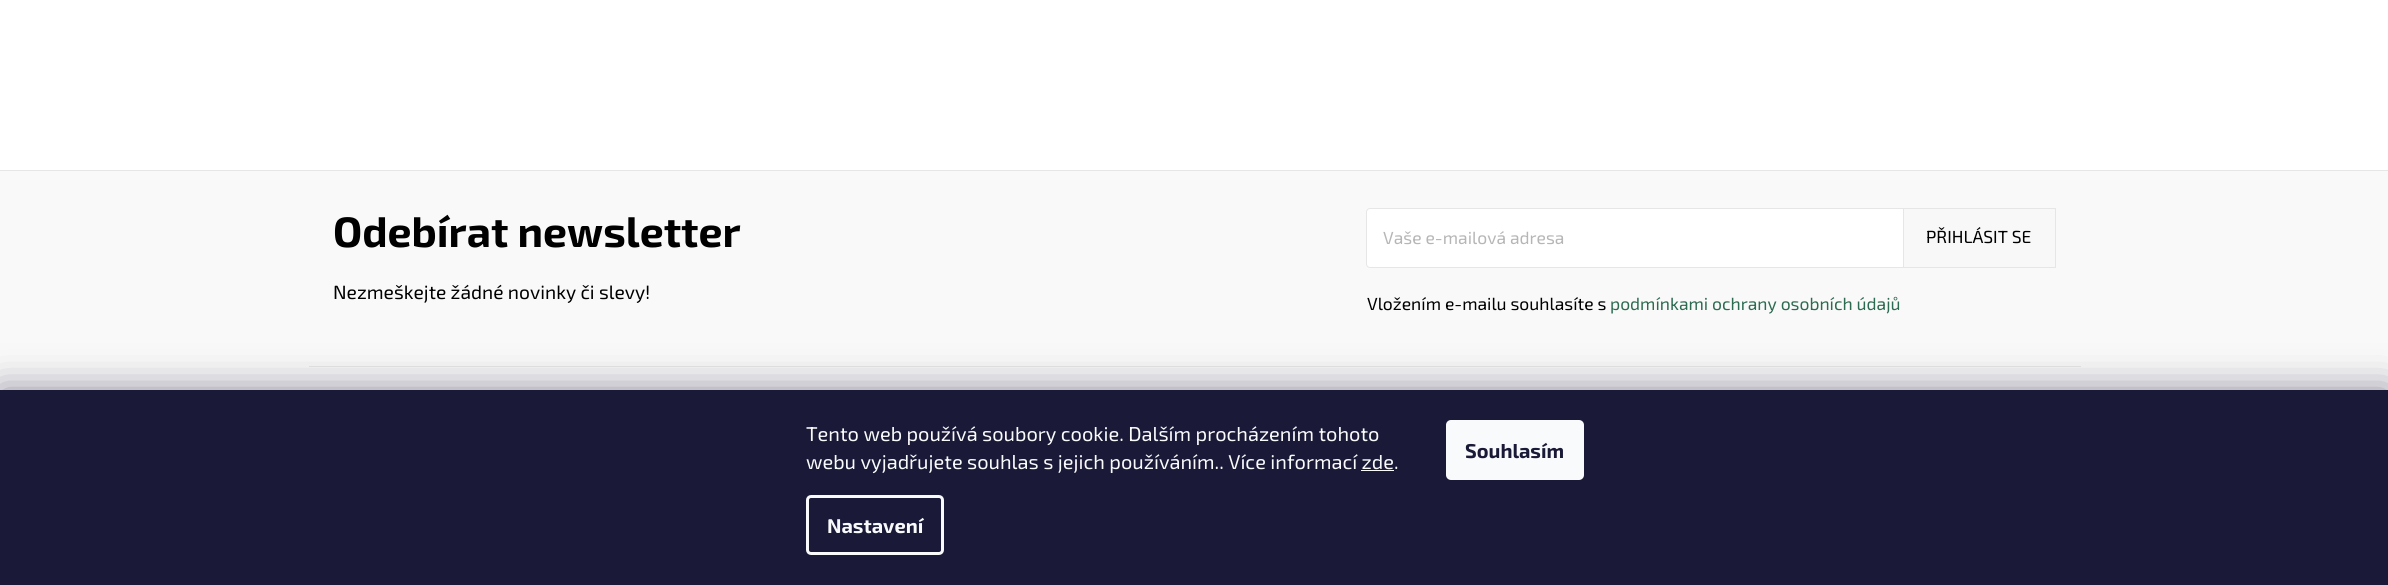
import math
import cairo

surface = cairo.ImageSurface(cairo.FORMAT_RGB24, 2388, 585)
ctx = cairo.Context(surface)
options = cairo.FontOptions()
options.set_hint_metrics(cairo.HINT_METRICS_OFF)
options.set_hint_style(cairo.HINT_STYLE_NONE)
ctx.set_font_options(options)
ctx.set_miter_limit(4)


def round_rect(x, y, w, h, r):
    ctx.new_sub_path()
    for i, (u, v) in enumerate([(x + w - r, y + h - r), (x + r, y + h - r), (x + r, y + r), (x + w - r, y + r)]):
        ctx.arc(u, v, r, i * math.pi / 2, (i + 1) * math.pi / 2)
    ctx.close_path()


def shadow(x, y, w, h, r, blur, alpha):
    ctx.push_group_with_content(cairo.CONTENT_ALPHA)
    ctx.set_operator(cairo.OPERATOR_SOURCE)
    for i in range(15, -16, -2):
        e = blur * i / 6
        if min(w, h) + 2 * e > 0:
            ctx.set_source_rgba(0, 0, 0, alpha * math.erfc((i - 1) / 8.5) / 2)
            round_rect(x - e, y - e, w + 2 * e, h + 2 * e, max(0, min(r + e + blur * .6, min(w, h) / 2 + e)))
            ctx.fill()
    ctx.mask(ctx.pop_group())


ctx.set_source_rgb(1, 1, 1)
ctx.paint()
ctx.set_source_rgb(0.976, 0.976, 0.976)
ctx.rectangle(0, 171, 2388, 219)
ctx.fill()
ctx.set_source_rgb(0.902, 0.902, 0.902)
ctx.rectangle(0, 170, 2388, 1)
ctx.fill()
ctx.rectangle(309, 366, 1772, 1)
ctx.fill()
ctx.select_font_face("Exo 2", cairo.FONT_SLANT_NORMAL, cairo.FONT_WEIGHT_BOLD)
ctx.set_font_size(42.5)
ctx.set_source_rgb(0, 0, 0)
ctx.move_to(333, 247)
ctx.show_text("Odebírat newsletter")
ctx.select_font_face("Exo 2")
ctx.set_font_size(19.25)
ctx.move_to(333, 299)
ctx.show_text("Nezmeškejte žádné novinky či slevy!")
ctx.set_source_rgb(1, 1, 1)
round_rect(1366.5, 208.5, 689, 59, 3.5)
ctx.fill_preserve()
ctx.set_source_rgb(0.902, 0.902, 0.902)
ctx.set_line_width(1)
ctx.stroke()
ctx.set_font_size(17.5)
ctx.set_source_rgb(0.714, 0.714, 0.714)
ctx.move_to(1383, 244)
ctx.show_text("Vaše e-mailová adresa")
ctx.set_source_rgb(0.969, 0.969, 0.969)
ctx.rectangle(1903.5, 208.5, 152, 59)
ctx.fill_preserve()
ctx.set_source_rgb(0.902, 0.902, 0.902)
ctx.stroke()
ctx.set_source_rgb(0, 0, 0)
ctx.move_to(1926, 243)
ctx.show_text("PŘIHLÁSIT SE")
ctx.move_to(1367, 310)
ctx.show_text("Vložením e-mailu souhlasíte s")
ctx.set_source_rgb(0.176, 0.42, 0.314)
ctx.move_to(1610, 310)
ctx.show_text("podmínkami ochrany osobních údajů")
ctx.set_source_rgb(0.106, 0.098, 0.224)
shadow(0, 390, 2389, 195, 0, 19, 0.5)
ctx.set_source_rgb(0.102, 0.098, 0.216)
ctx.rectangle(0, 390, 2388, 195)
ctx.fill()
ctx.set_font_size(20)
ctx.set_source_rgb(0.973, 0.98, 0.984)
ctx.move_to(806, 441)
ctx.show_text("Tento web používá soubory cookie. Dalším procházením tohoto")
ctx.move_to(806, 469)
ctx.show_text("webu vyjadřujete souhlas s jejich používáním.. Více informací zde.")
ctx.rectangle(1361, 470, 33, 1)
ctx.fill()
round_rect(807.5, 496.5, 135, 57, 3.5)
ctx.set_line_width(3)
ctx.stroke()
ctx.select_font_face("Exo 2", cairo.FONT_SLANT_NORMAL, cairo.FONT_WEIGHT_BOLD)
ctx.move_to(827, 533)
ctx.show_text("Nastavení")
round_rect(1446, 420, 138, 60, 5)
ctx.fill()
ctx.set_source_rgb(0.102, 0.098, 0.216)
ctx.move_to(1465, 458)
ctx.show_text("Souhlasím")
surface.write_to_png("page.png")
